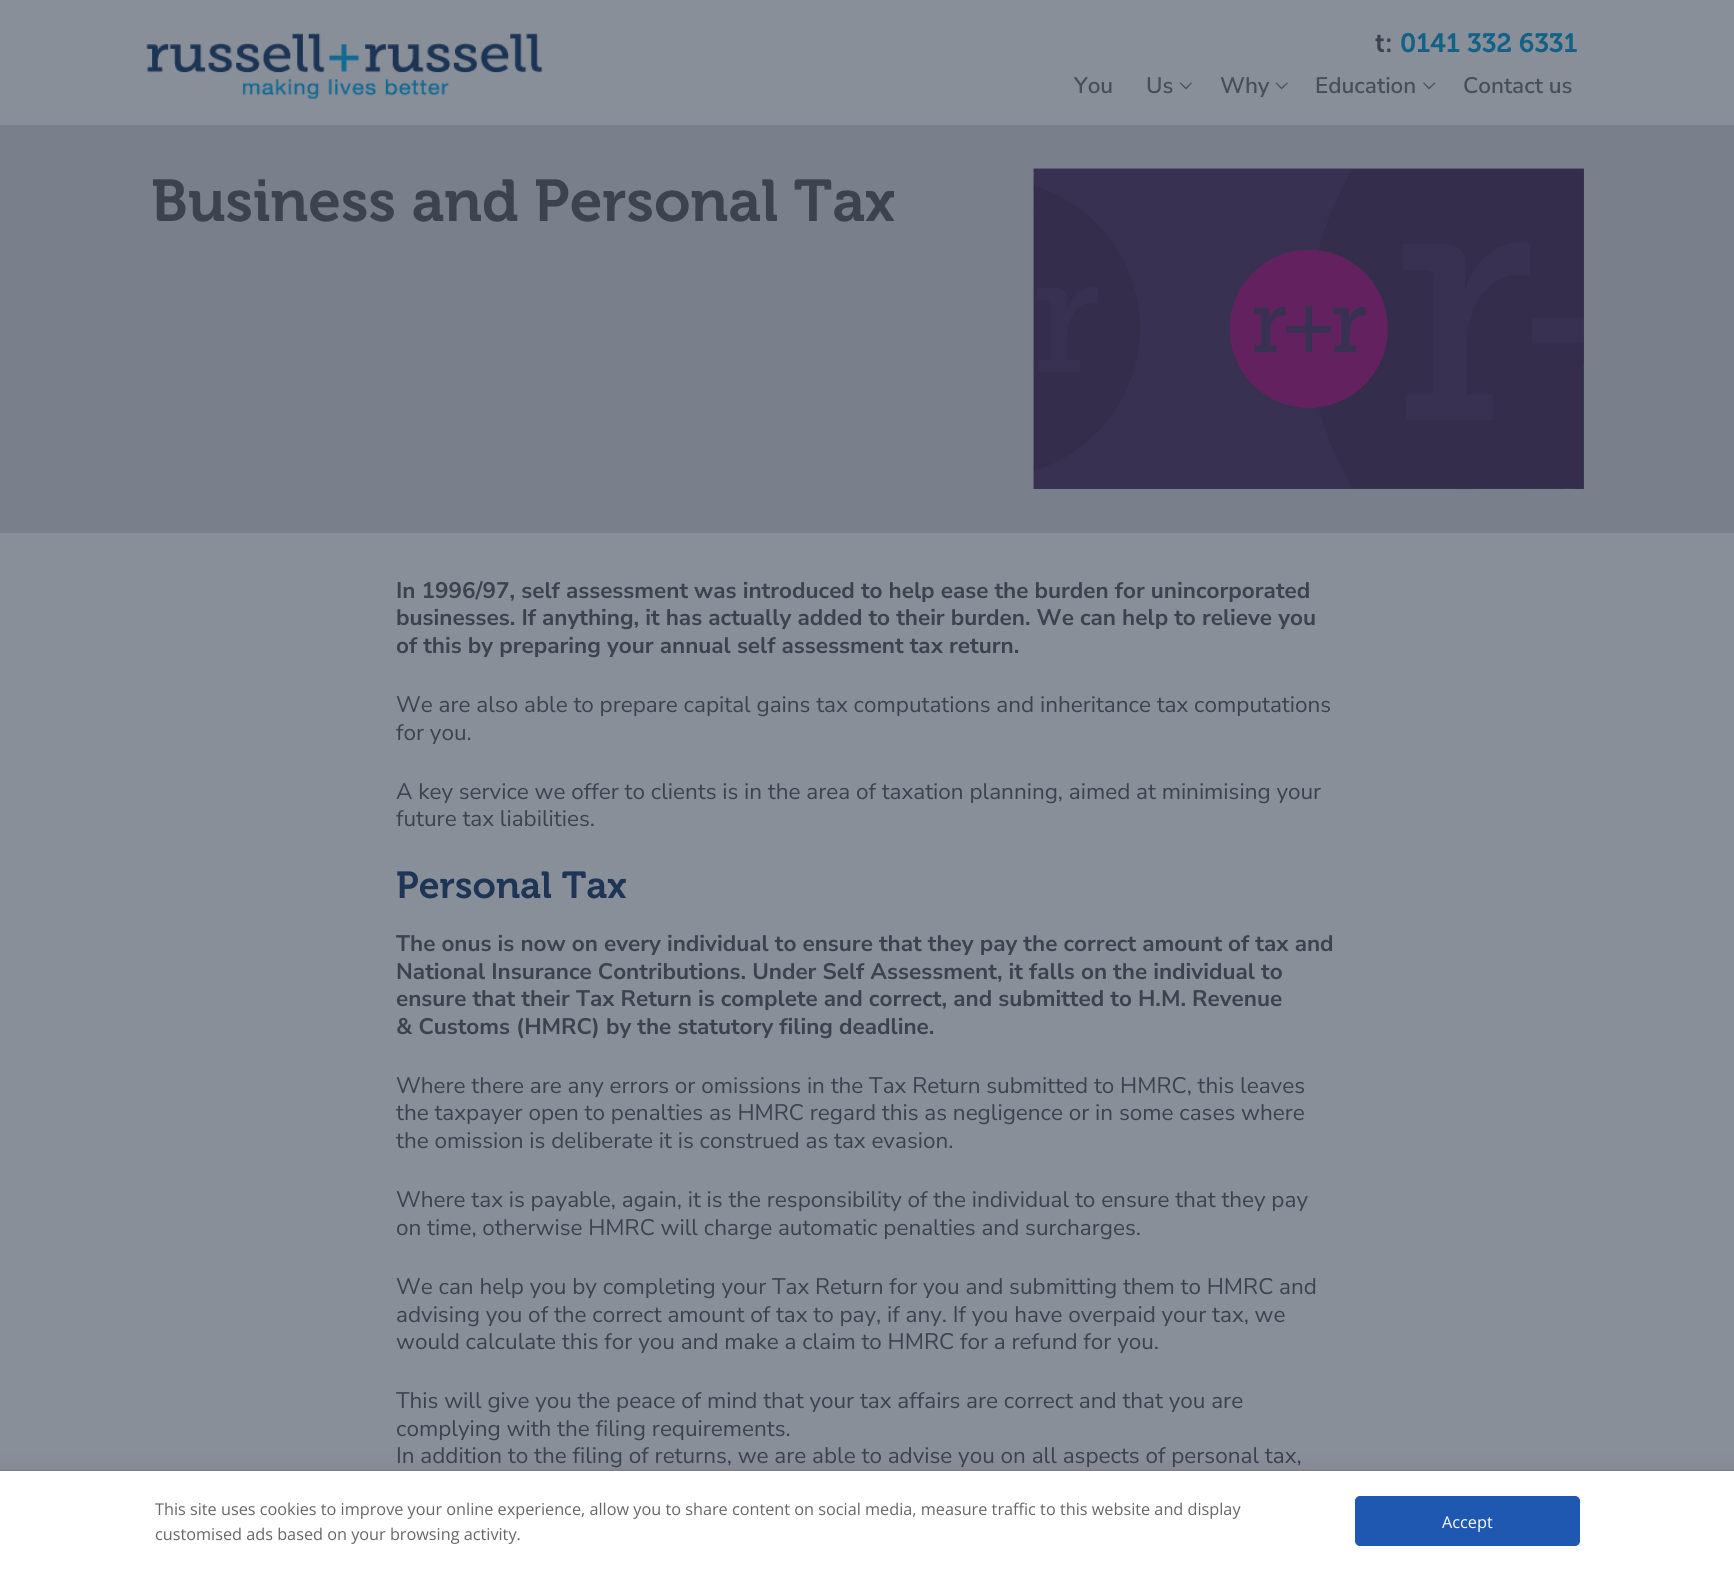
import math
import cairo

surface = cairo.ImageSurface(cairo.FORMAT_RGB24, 1734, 1571)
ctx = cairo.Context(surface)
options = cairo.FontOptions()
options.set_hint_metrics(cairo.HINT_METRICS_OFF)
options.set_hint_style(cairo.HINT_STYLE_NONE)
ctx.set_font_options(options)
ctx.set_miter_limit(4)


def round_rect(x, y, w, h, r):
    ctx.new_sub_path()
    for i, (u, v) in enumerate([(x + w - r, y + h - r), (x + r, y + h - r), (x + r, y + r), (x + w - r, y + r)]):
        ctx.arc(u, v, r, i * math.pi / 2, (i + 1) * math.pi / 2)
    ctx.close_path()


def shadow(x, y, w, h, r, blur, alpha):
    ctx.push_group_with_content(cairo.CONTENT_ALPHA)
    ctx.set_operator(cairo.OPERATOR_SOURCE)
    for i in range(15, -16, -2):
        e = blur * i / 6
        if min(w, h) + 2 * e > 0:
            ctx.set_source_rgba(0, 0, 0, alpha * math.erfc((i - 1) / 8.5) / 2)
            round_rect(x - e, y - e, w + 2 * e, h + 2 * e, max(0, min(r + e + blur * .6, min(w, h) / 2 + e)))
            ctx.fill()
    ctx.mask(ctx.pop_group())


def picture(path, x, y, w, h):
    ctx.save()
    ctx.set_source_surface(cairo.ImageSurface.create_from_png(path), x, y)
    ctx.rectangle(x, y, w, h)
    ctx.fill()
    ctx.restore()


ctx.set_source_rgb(0.537, 0.561, 0.6)
ctx.paint()
ctx.select_font_face("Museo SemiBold")
ctx.set_font_size(26.5)
ctx.set_source_rgb(0.235, 0.259, 0.306)
ctx.move_to(1375, 52)
ctx.show_text("t:")
ctx.set_source_rgb(0.075, 0.38, 0.529)
ctx.move_to(1400, 52)
ctx.show_text("0141 332 6331")
picture("img1.png", 146, 33, 397, 66)
ctx.select_font_face("Nunito Sans SemiBold")
ctx.set_font_size(22.5)
ctx.set_source_rgb(0.282, 0.306, 0.349)
ctx.move_to(1074, 93)
ctx.show_text("You")
ctx.move_to(1146, 93)
ctx.show_text("Us")
ctx.new_path()
ctx.move_to(1186, 89.5)
ctx.line_to(1179.5, 83)
ctx.line_to(1180.5, 82.5)
ctx.line_to(1186, 87.5)
ctx.close_path()
ctx.move_to(1192, 83)
ctx.line_to(1186, 89.5)
ctx.line_to(1186, 87.5)
ctx.line_to(1191, 82.5)
ctx.close_path()
ctx.fill()
ctx.move_to(1220, 93)
ctx.show_text("Why")
ctx.new_path()
ctx.move_to(1281.5, 89.5)
ctx.line_to(1275.5, 83)
ctx.line_to(1276.5, 82.5)
ctx.line_to(1281.5, 87.5)
ctx.close_path()
ctx.fill()
ctx.set_source_rgba(0.075, 0.098, 0.141, 0.55)
ctx.new_path()
ctx.move_to(1288, 83)
ctx.line_to(1281.5, 89.5)
ctx.line_to(1281.5, 87.5)
ctx.line_to(1287, 82.5)
ctx.close_path()
ctx.fill()
ctx.set_source_rgb(0.282, 0.306, 0.349)
ctx.move_to(1315, 93)
ctx.show_text("Education")
ctx.new_path()
ctx.move_to(1429, 89.5)
ctx.line_to(1423, 83)
ctx.line_to(1424, 82.5)
ctx.line_to(1429, 87.5)
ctx.close_path()
ctx.move_to(1435.5, 83)
ctx.line_to(1429, 89.5)
ctx.line_to(1429, 87.5)
ctx.line_to(1434.5, 82.5)
ctx.close_path()
ctx.fill()
ctx.move_to(1463, 93)
ctx.show_text("Contact us")
ctx.set_source_rgb(0.478, 0.502, 0.545)
ctx.rectangle(0, 125, 1734, 408)
ctx.fill()
ctx.select_font_face("Museo SemiBold")
ctx.set_font_size(58.75)
ctx.set_source_rgb(0.235, 0.259, 0.306)
ctx.move_to(151, 221)
ctx.show_text("Business and Personal Tax")
picture("img2.png", 1033, 168, 551, 321)
picture("img3.png", 1033, 168, 551, 321)
ctx.select_font_face("Nunito Sans", cairo.FONT_SLANT_NORMAL, cairo.FONT_WEIGHT_BOLD)
ctx.set_font_size(22.5)
ctx.move_to(396, 598)
ctx.show_text("In 1996/97, self assessment was introduced to help ease the burden for unincorporated")
ctx.move_to(396, 625)
ctx.show_text("businesses. If anything, it has actually added to their burden. We can help to relieve you")
ctx.move_to(396, 653)
ctx.show_text("of this by preparing your annual self assessment tax return.")
ctx.select_font_face("Nunito Sans")
ctx.move_to(396, 712)
ctx.show_text("We are also able to prepare capital gains tax computations and inheritance tax computations")
ctx.move_to(396, 740)
ctx.show_text("for you.")
ctx.move_to(396, 799)
ctx.show_text("A key service we offer to clients is in the area of taxation planning, aimed at minimising your")
ctx.move_to(396, 826)
ctx.show_text("future tax liabilities.")
ctx.select_font_face("Museo SemiBold")
ctx.set_font_size(37.5)
ctx.set_source_rgb(0.118, 0.208, 0.333)
ctx.move_to(396, 898)
ctx.show_text("Personal Tax")
ctx.select_font_face("Nunito Sans", cairo.FONT_SLANT_NORMAL, cairo.FONT_WEIGHT_BOLD)
ctx.set_font_size(22.5)
ctx.set_source_rgb(0.235, 0.259, 0.306)
ctx.move_to(396, 951)
ctx.show_text("The onus is now on every individual to ensure that they pay the correct amount of tax and")
ctx.move_to(396, 979)
ctx.show_text("National Insurance Contributions. Under Self Assessment, it falls on the individual to")
ctx.move_to(396, 1006)
ctx.show_text("ensure that their Tax Return is complete and correct, and submitted to H.M. Revenue")
ctx.move_to(396, 1034)
ctx.show_text("& Customs (HMRC) by the statutory filing deadline.")
ctx.select_font_face("Nunito Sans")
ctx.move_to(396, 1093)
ctx.show_text("Where there are any errors or omissions in the Tax Return submitted to HMRC, this leaves")
ctx.move_to(396, 1120)
ctx.show_text("the taxpayer open to penalties as HMRC regard this as negligence or in some cases where")
ctx.move_to(396, 1148)
ctx.show_text("the omission is deliberate it is construed as tax evasion.")
ctx.move_to(396, 1207)
ctx.show_text("Where tax is payable, again, it is the responsibility of the individual to ensure that they pay")
ctx.move_to(396, 1235)
ctx.show_text("on time, otherwise HMRC will charge automatic penalties and surcharges.")
ctx.move_to(396, 1294)
ctx.show_text("We can help you by completing your Tax Return for you and submitting them to HMRC and")
ctx.move_to(396, 1322)
ctx.show_text("advising you of the correct amount of tax to pay, if any. If you have overpaid your tax, we")
ctx.move_to(396, 1349)
ctx.show_text("would calculate this for you and make a claim to HMRC for a refund for you.")
ctx.move_to(396, 1408)
ctx.show_text("This will give you the peace of mind that your tax affairs are correct and that you are")
ctx.move_to(396, 1436)
ctx.show_text("complying with the filing requirements.")
ctx.move_to(396, 1463)
ctx.show_text("In addition to the filing of returns, we are able to advise you on all aspects of personal tax,")
ctx.set_source_rgb(0.141, 0.184, 0.259)
shadow(-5, 1479, 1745, 85, 0, 12.5, 0.31)
ctx.rectangle(-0.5, 1470.5, 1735, 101)
ctx.set_source_rgba(0.141, 0.184, 0.259, 0.08)
ctx.set_line_width(1)
ctx.stroke()
ctx.set_source_rgb(1, 1, 1)
ctx.rectangle(0, 1471, 1734, 100)
ctx.fill()
ctx.select_font_face("Open Sans")
ctx.set_font_size(16.25)
ctx.set_source_rgb(0.4, 0.4, 0.4)
ctx.move_to(155, 1515)
ctx.show_text("This site uses cookies to improve your online experience, allow you to share content on social media, measure traffic to this website and display")
ctx.move_to(155, 1540)
ctx.show_text("customised ads based on your browsing activity.")
ctx.set_source_rgb(0.118, 0.345, 0.694)
round_rect(1355.5, 1496.5, 224, 49, 4.5)
ctx.fill_preserve()
ctx.stroke()
ctx.set_source_rgb(1, 1, 1)
ctx.move_to(1442, 1528)
ctx.show_text("Accept")
surface.write_to_png("page.png")
